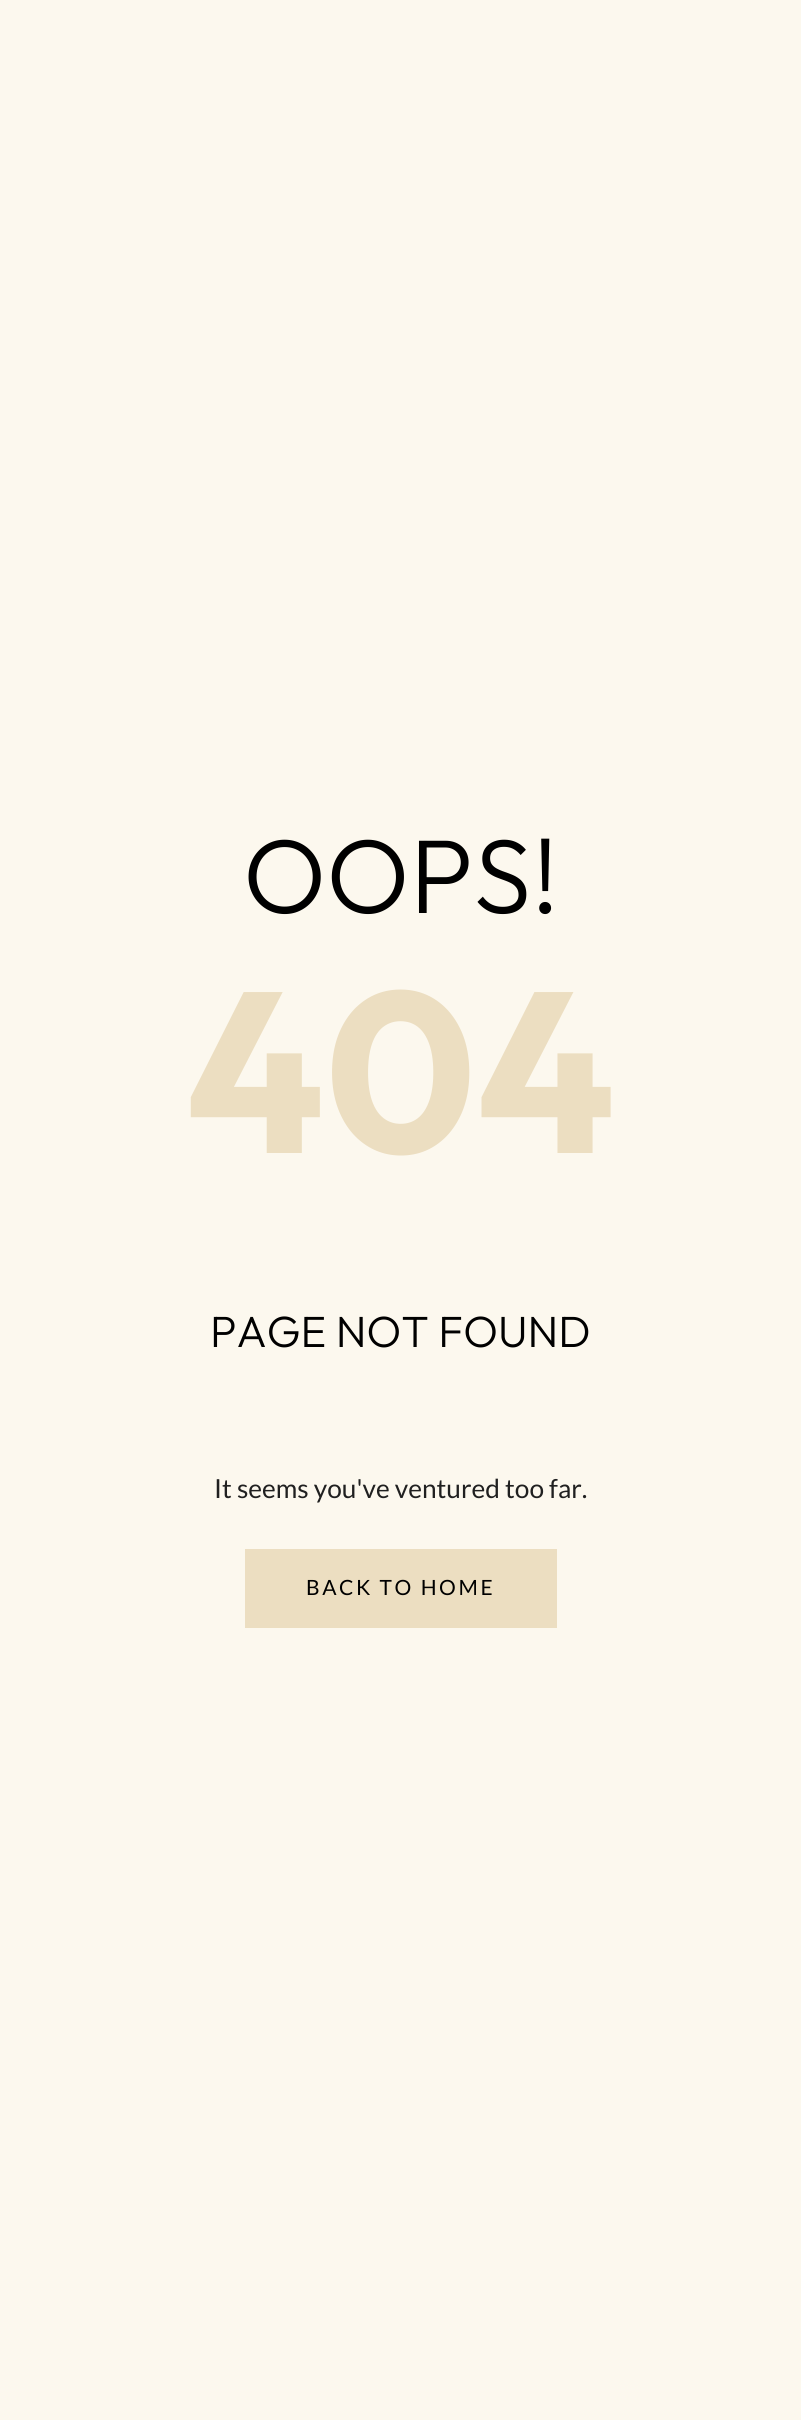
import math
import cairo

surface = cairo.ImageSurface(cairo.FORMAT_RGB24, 801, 2420)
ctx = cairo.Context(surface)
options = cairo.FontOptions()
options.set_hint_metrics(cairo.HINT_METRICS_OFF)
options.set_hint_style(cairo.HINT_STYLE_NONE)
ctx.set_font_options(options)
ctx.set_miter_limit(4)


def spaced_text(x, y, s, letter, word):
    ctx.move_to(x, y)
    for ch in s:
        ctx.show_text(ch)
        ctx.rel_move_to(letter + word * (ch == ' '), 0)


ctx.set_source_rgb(0.988, 0.969, 0.933)
ctx.paint()
ctx.select_font_face("Outfit Light")
ctx.set_font_size(105)
ctx.set_source_rgb(0, 0, 0)
ctx.move_to(243, 913)
ctx.show_text("OOPS!")
ctx.select_font_face("Outfit", cairo.FONT_SLANT_NORMAL, cairo.FONT_WEIGHT_BOLD)
ctx.set_font_size(228)
ctx.set_source_rgb(0.925, 0.871, 0.757)
ctx.move_to(186, 1153)
ctx.show_text("404")
ctx.select_font_face("Outfit Light")
ctx.set_font_size(43.75)
ctx.set_source_rgb(0, 0, 0)
ctx.move_to(210, 1347)
ctx.show_text("PAGE NOT FOUND")
ctx.select_font_face("Lato")
ctx.set_font_size(26.25)
ctx.set_source_rgb(0.125, 0.125, 0.125)
ctx.move_to(214, 1498)
ctx.show_text("It seems you've ventured too far.")
ctx.set_source_rgb(0.925, 0.871, 0.757)
ctx.rectangle(245, 1549, 312, 79)
ctx.fill()
ctx.set_font_size(21)
ctx.set_source_rgb(0, 0, 0)
spaced_text(306, 1595, "BACK TO HOME", 2.6, 0)
surface.write_to_png("page.png")
